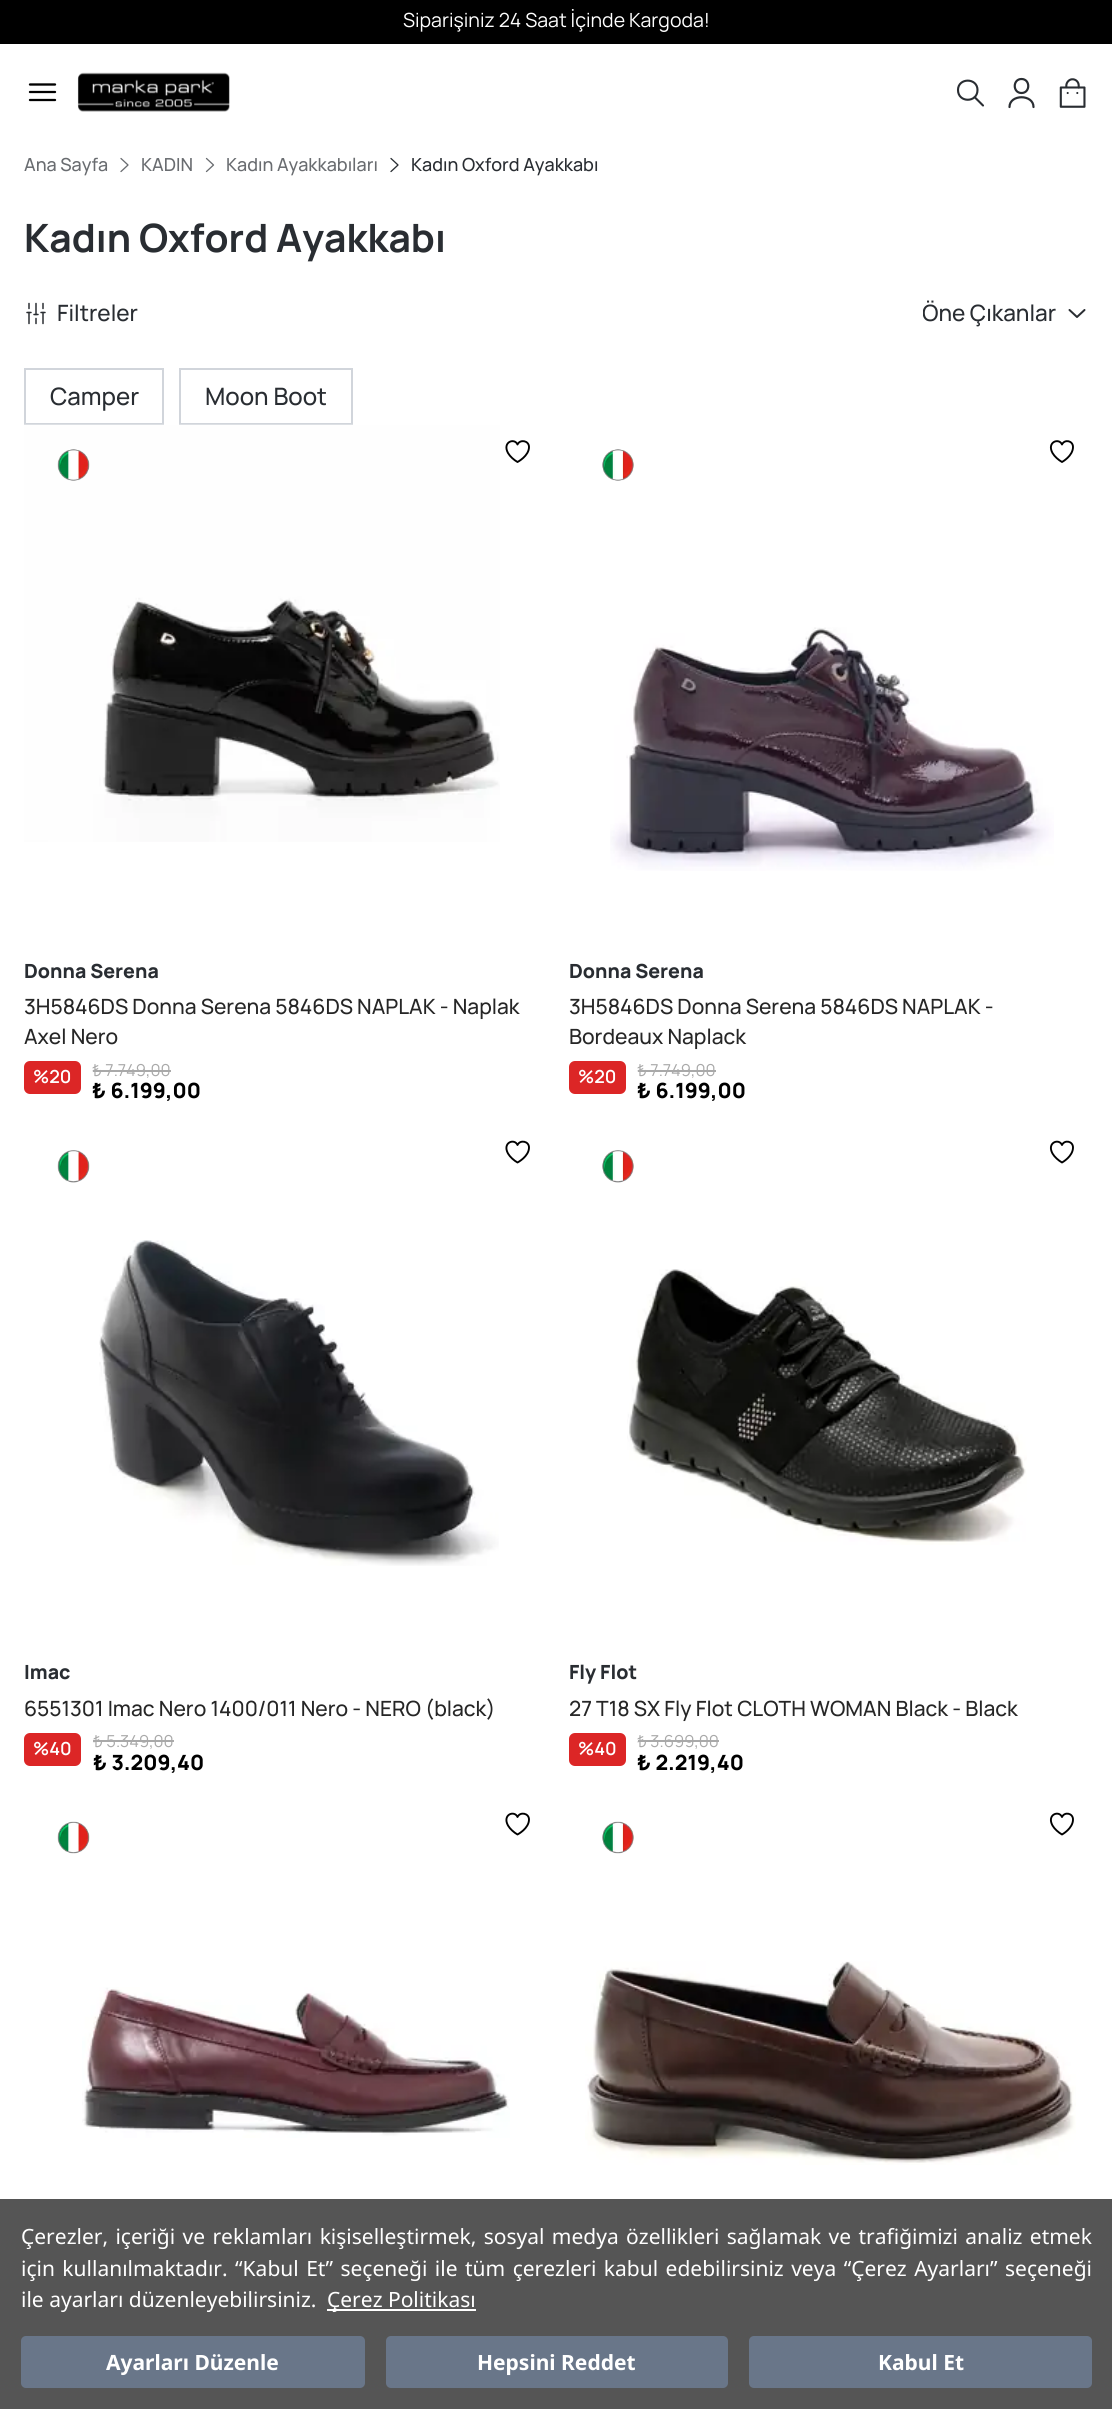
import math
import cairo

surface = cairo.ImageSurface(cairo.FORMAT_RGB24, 1112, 2409)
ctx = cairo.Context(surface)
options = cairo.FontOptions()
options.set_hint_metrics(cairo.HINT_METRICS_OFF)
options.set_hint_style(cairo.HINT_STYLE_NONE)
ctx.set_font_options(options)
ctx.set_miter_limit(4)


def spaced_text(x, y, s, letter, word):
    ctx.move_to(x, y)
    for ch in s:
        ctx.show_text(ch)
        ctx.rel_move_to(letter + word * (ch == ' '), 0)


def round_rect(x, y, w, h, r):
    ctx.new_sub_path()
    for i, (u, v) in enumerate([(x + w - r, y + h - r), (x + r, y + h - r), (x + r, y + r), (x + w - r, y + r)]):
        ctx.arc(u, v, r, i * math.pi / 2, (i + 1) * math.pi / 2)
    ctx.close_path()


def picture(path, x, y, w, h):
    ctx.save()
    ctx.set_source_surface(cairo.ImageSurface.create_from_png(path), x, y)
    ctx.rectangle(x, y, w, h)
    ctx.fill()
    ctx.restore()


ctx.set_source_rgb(1, 1, 1)
ctx.paint()
ctx.set_source_rgb(0, 0, 0)
ctx.rectangle(0, 0, 1112, 44)
ctx.fill()
ctx.select_font_face("Manrope")
ctx.set_font_size(19.5)
ctx.set_source_rgb(1, 1, 1)
ctx.move_to(403, 27)
ctx.show_text("Siparişiniz 24 Saat İçinde Kargoda!")
ctx.new_path()
ctx.move_to(55, 84.5)
ctx.line_to(30, 84.5)
ctx.move_to(55, 92)
ctx.line_to(30, 92)
ctx.move_to(55, 100)
ctx.line_to(30, 100)
ctx.set_source_rgb(0, 0, 0)
ctx.set_line_width(2.3)
ctx.set_line_cap(cairo.LINE_CAP_ROUND)
ctx.stroke()
picture("img1.png", 77, 72, 153, 40)
ctx.new_path()
ctx.move_to(958, 90)
ctx.curve_to(958, 103, 977.5, 103, 977.5, 90)
ctx.curve_to(977.5, 77.5, 958, 77.5, 958, 90)
ctx.close_path()
ctx.move_to(983, 105.5)
ctx.line_to(974.5, 97)
ctx.set_source_rgb(0.161, 0.176, 0.196)
ctx.set_line_width(2.1)
ctx.set_line_join(cairo.LINE_JOIN_ROUND)
ctx.stroke()
ctx.new_path()
ctx.move_to(1021.5, 93)
ctx.curve_to(1030.5, 93, 1030.5, 79, 1021.5, 79)
ctx.curve_to(1012.5, 79, 1012.5, 93, 1021.5, 93)
ctx.close_path()
ctx.move_to(1033.5, 107)
ctx.curve_to(1033.5, 94, 1009.5, 94, 1009.5, 107)
ctx.set_line_width(2.2)
ctx.stroke()
picture("img2.png", 1059, 78, 27, 30)
ctx.select_font_face("Manrope Medium")
ctx.set_font_size(18)
ctx.set_source_rgb(0.412, 0.424, 0.439)
ctx.move_to(24, 171)
ctx.show_text("Ana Sayfa")
ctx.new_path()
ctx.move_to(121, 158.5)
ctx.line_to(128, 165)
ctx.line_to(121, 171.5)
ctx.set_line_width(1.3)
ctx.stroke()
ctx.move_to(141, 171)
ctx.show_text("KADIN")
ctx.new_path()
ctx.move_to(206.5, 158.5)
ctx.line_to(213.5, 165)
ctx.line_to(206.5, 171.5)
ctx.stroke()
ctx.move_to(226, 171)
ctx.show_text("Kadın Ayakkabıları")
ctx.new_path()
ctx.move_to(391, 158.5)
ctx.line_to(398, 165)
ctx.line_to(391, 171.5)
ctx.set_source_rgb(0.161, 0.176, 0.196)
ctx.stroke()
ctx.move_to(411, 171)
ctx.show_text("Kadın Oxford Ayakkabı")
ctx.select_font_face("Manrope", cairo.FONT_SLANT_NORMAL, cairo.FONT_WEIGHT_BOLD)
ctx.set_font_size(39)
ctx.move_to(24, 252)
ctx.show_text("Kadın Oxford Ayakkabı")
picture("img3.png", 26, 302, 20, 23)
ctx.select_font_face("Manrope Medium")
ctx.set_font_size(22.5)
ctx.move_to(57, 321)
ctx.show_text("Filtreler")
ctx.save()
ctx.rectangle(923, 297, 166, 35)
ctx.clip()
ctx.move_to(922, 321)
ctx.show_text("Öne Çıkanlar")
ctx.restore()
ctx.new_path()
ctx.move_to(1084.5, 310)
ctx.line_to(1077, 317)
ctx.line_to(1069.5, 310)
ctx.set_line_width(2)
ctx.stroke()
ctx.rectangle(25, 369, 138, 55)
ctx.set_source_rgb(0.82, 0.835, 0.859)
ctx.set_line_cap(cairo.LINE_CAP_BUTT)
ctx.set_line_join(cairo.LINE_JOIN_MITER)
ctx.stroke()
ctx.set_font_size(24)
ctx.set_source_rgb(0.161, 0.176, 0.196)
ctx.move_to(50, 405)
ctx.show_text("Camper")
ctx.rectangle(180, 369, 172, 55)
ctx.set_source_rgb(0.82, 0.835, 0.859)
ctx.stroke()
ctx.set_source_rgb(0.161, 0.176, 0.196)
ctx.move_to(205, 405)
ctx.show_text("Moon Boot")
picture("img4.png", 24, 424, 476, 418)
picture("img5.png", 57, 449, 33, 32)
ctx.new_path()
ctx.move_to(529, 447)
ctx.curve_to(529, 440.5, 520, 439, 517.5, 444.5)
ctx.curve_to(514.5, 437.5, 502, 442, 508, 453)
ctx.curve_to(510, 456.5, 514, 460, 517.5, 462)
ctx.curve_to(517.5, 462, 529, 456, 529, 447)
ctx.close_path()
ctx.set_source_rgb(0, 0, 0)
ctx.set_line_width(1.9)
ctx.set_line_cap(cairo.LINE_CAP_ROUND)
ctx.set_line_join(cairo.LINE_JOIN_ROUND)
ctx.stroke()
ctx.select_font_face("Manrope ExtraBold")
ctx.set_font_size(19.5)
ctx.set_source_rgb(0.161, 0.176, 0.196)
ctx.move_to(24, 978)
ctx.show_text("Donna Serena")
ctx.select_font_face("Manrope Medium")
ctx.set_font_size(21)
ctx.set_source_rgb(0.149, 0.149, 0.149)
ctx.move_to(24, 1014)
ctx.show_text("3H5846DS Donna Serena 5846DS NAPLAK - Naplak")
ctx.move_to(24, 1044)
ctx.show_text("Axel Nero")
ctx.set_source_rgb(0.863, 0.149, 0.149)
round_rect(24, 1061, 57, 33, 6)
ctx.fill()
ctx.select_font_face("Manrope SemiBold")
ctx.set_font_size(18)
ctx.set_source_rgb(1, 1, 1)
ctx.move_to(33, 1083)
ctx.show_text("%20")
ctx.select_font_face("Manrope")
ctx.set_font_size(16.5)
ctx.set_source_rgb(0.663, 0.663, 0.663)
ctx.move_to(92, 1076)
ctx.show_text("₺ 7.749,00")
ctx.rectangle(93, 1070, 78, 2)
ctx.fill()
ctx.select_font_face("Manrope ExtraBold")
ctx.set_font_size(21)
ctx.set_source_rgb(0, 0, 0)
ctx.move_to(92, 1098)
ctx.show_text("₺ 6.199,00")
picture("img6.png", 602, 449, 32, 32)
picture("img7.png", 610, 627, 444, 244)
ctx.new_path()
ctx.move_to(1073, 447)
ctx.curve_to(1073, 440.5, 1064.5, 439, 1062, 444.5)
ctx.curve_to(1059, 437.5, 1046.5, 442, 1052.5, 453)
ctx.curve_to(1054.5, 456.5, 1058.5, 460, 1062, 462)
ctx.curve_to(1062, 462, 1073, 456, 1073, 447)
ctx.close_path()
ctx.stroke()
ctx.set_font_size(19.5)
ctx.set_source_rgb(0.161, 0.176, 0.196)
ctx.move_to(569, 978)
ctx.show_text("Donna Serena")
ctx.select_font_face("Manrope Medium")
ctx.set_font_size(21)
ctx.set_source_rgb(0.149, 0.149, 0.149)
ctx.move_to(569, 1014)
ctx.show_text("3H5846DS Donna Serena 5846DS NAPLAK -")
ctx.move_to(569, 1044)
ctx.show_text("Bordeaux Naplack")
ctx.set_source_rgb(0.863, 0.149, 0.149)
round_rect(569, 1061, 57, 33, 6)
ctx.fill()
ctx.select_font_face("Manrope SemiBold")
ctx.set_font_size(18)
ctx.set_source_rgb(1, 1, 1)
ctx.move_to(578, 1083)
ctx.show_text("%20")
ctx.select_font_face("Manrope")
ctx.set_font_size(16.5)
ctx.set_source_rgb(0.663, 0.663, 0.663)
ctx.move_to(637, 1076)
ctx.show_text("₺ 7.749,00")
ctx.rectangle(638, 1070, 78, 2)
ctx.fill()
ctx.select_font_face("Manrope ExtraBold")
ctx.set_font_size(21)
ctx.set_source_rgb(0, 0, 0)
ctx.move_to(637, 1098)
ctx.show_text("₺ 6.199,00")
picture("img8.png", 57, 1150, 33, 33)
picture("img9.png", 99, 1240, 400, 326)
ctx.new_path()
ctx.move_to(529, 1147.5)
ctx.curve_to(529, 1141, 520, 1139.5, 517.5, 1145)
ctx.curve_to(514.5, 1138, 502, 1142.5, 508, 1153.5)
ctx.curve_to(510, 1157, 514, 1160.5, 517.5, 1162.5)
ctx.curve_to(517.5, 1162.5, 529, 1156.5, 529, 1147.5)
ctx.close_path()
ctx.stroke()
ctx.set_font_size(19.5)
ctx.set_source_rgb(0.161, 0.176, 0.196)
ctx.move_to(24, 1679)
ctx.show_text("Imac")
ctx.select_font_face("Manrope Medium")
ctx.set_font_size(21)
ctx.set_source_rgb(0.149, 0.149, 0.149)
ctx.move_to(24, 1716)
ctx.show_text("6551301 Imac Nero 1400/011 Nero - NERO (black)")
ctx.set_source_rgb(0.863, 0.149, 0.149)
round_rect(24, 1733, 57, 33, 6)
ctx.fill()
ctx.select_font_face("Manrope SemiBold")
ctx.set_font_size(18)
ctx.set_source_rgb(1, 1, 1)
ctx.move_to(33, 1755)
ctx.show_text("%40")
ctx.select_font_face("Manrope")
ctx.set_font_size(16.5)
ctx.set_source_rgb(0.663, 0.663, 0.663)
ctx.move_to(93, 1747)
ctx.show_text("₺ 5.349,00")
ctx.rectangle(93, 1740, 81, 2)
ctx.fill()
ctx.select_font_face("Manrope ExtraBold")
ctx.set_font_size(21)
ctx.set_source_rgb(0, 0, 0)
ctx.move_to(93, 1770)
ctx.show_text("₺ 3.209,40")
picture("img10.png", 602, 1150, 32, 33)
picture("img11.png", 627, 1269, 400, 276)
ctx.new_path()
ctx.move_to(1073, 1147.5)
ctx.curve_to(1073, 1141, 1064.5, 1139.5, 1062, 1145)
ctx.curve_to(1059, 1138, 1046.5, 1142.5, 1052.5, 1153.5)
ctx.curve_to(1054.5, 1157, 1058.5, 1160.5, 1062, 1162.5)
ctx.curve_to(1062, 1162.5, 1073, 1156.5, 1073, 1147.5)
ctx.close_path()
ctx.stroke()
ctx.set_font_size(19.5)
ctx.set_source_rgb(0.161, 0.176, 0.196)
ctx.move_to(569, 1679)
ctx.show_text("Fly Flot")
ctx.select_font_face("Manrope Medium")
ctx.set_font_size(21)
ctx.set_source_rgb(0.149, 0.149, 0.149)
ctx.move_to(569, 1716)
ctx.show_text("27 T18 SX Fly Flot CLOTH WOMAN Black - Black")
ctx.set_source_rgb(0.863, 0.149, 0.149)
round_rect(569, 1733, 57, 33, 6)
ctx.fill()
ctx.select_font_face("Manrope SemiBold")
ctx.set_font_size(18)
ctx.set_source_rgb(1, 1, 1)
ctx.move_to(578, 1755)
ctx.show_text("%40")
ctx.select_font_face("Manrope")
ctx.set_font_size(16.5)
ctx.set_source_rgb(0.663, 0.663, 0.663)
ctx.move_to(637, 1747)
ctx.show_text("₺ 3.699,00")
ctx.rectangle(638, 1740, 81, 2)
ctx.fill()
ctx.select_font_face("Manrope ExtraBold")
ctx.set_font_size(21)
ctx.set_source_rgb(0, 0, 0)
ctx.move_to(637, 1770)
ctx.show_text("₺ 2.219,40")
picture("img12.png", 57, 1821, 33, 33)
picture("img13.png", 82, 1987, 428, 151)
ctx.new_path()
ctx.move_to(529, 1819.5)
ctx.curve_to(529, 1813, 520, 1811.5, 517.5, 1817)
ctx.curve_to(514.5, 1810, 502, 1814.5, 508, 1825.5)
ctx.curve_to(510, 1829, 514, 1832.5, 517.5, 1834.5)
ctx.curve_to(517.5, 1834.5, 529, 1828.5, 529, 1819.5)
ctx.close_path()
ctx.stroke()
ctx.new_path()
ctx.move_to(1073, 1819.5)
ctx.curve_to(1073, 1813, 1064.5, 1811.5, 1062, 1817)
ctx.curve_to(1059, 1810, 1046.5, 1814.5, 1052.5, 1825.5)
ctx.curve_to(1054.5, 1829, 1058.5, 1832.5, 1062, 1834.5)
ctx.curve_to(1062, 1834.5, 1073, 1828.5, 1073, 1819.5)
ctx.close_path()
ctx.stroke()
picture("img14.png", 602, 1821, 32, 33)
picture("img15.png", 585, 1961, 491, 204)
ctx.set_source_rgb(0.333, 0.333, 0.333)
ctx.rectangle(0, 2199, 1112, 210)
ctx.fill()
ctx.select_font_face("Noto Sans")
ctx.set_source_rgb(1, 1, 1)
spaced_text(21, 2244, "Çerezler, içeriği ve reklamları kişiselleştirmek, sosyal medya özellikleri sağlamak ve trafiğimizi analiz etmek", 0, 1.9)
spaced_text(21, 2276, "için kullanılmaktadır. “Kabul Et” seçeneği ile tüm çerezleri kabul edebilirsiniz veya “Çerez Ayarları” seçeneği", 0, 2)
ctx.move_to(21, 2307)
ctx.show_text("ile ayarları düzenleyebilirsiniz.")
ctx.rectangle(327, 2309, 149, 2)
ctx.fill()
ctx.move_to(327, 2307)
ctx.show_text("Çerez Politikası")
ctx.set_source_rgb(0.412, 0.463, 0.537)
round_rect(21, 2336, 344, 52, 5)
ctx.fill()
ctx.select_font_face("Noto Sans", cairo.FONT_SLANT_NORMAL, cairo.FONT_WEIGHT_BOLD)
ctx.set_source_rgb(1, 1, 1)
ctx.move_to(106, 2370)
ctx.show_text("Ayarları Düzenle")
ctx.set_source_rgb(0.412, 0.463, 0.537)
round_rect(386, 2336, 342, 52, 5)
ctx.fill()
ctx.set_source_rgb(1, 1, 1)
ctx.move_to(477, 2370)
ctx.show_text("Hepsini Reddet")
ctx.set_source_rgb(0.412, 0.463, 0.537)
round_rect(749, 2336, 343, 52, 5)
ctx.fill()
ctx.set_source_rgb(1, 1, 1)
ctx.move_to(878, 2370)
ctx.show_text("Kabul Et")
surface.write_to_png("page.png")
